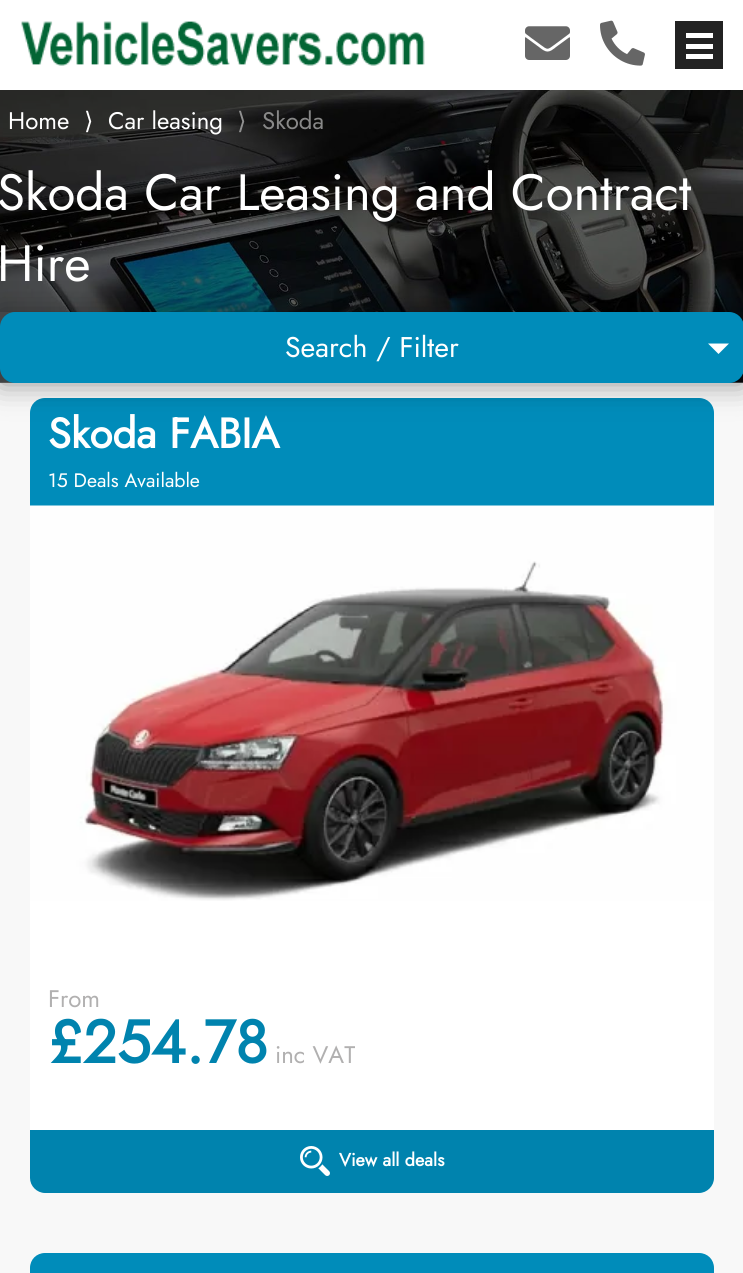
import math
import cairo

surface = cairo.ImageSurface(cairo.FORMAT_RGB24, 743, 1273)
ctx = cairo.Context(surface)
options = cairo.FontOptions()
options.set_hint_metrics(cairo.HINT_METRICS_OFF)
options.set_hint_style(cairo.HINT_STYLE_NONE)
ctx.set_font_options(options)
ctx.set_miter_limit(4)


def round_rect(x, y, w, h, r):
    ctx.new_sub_path()
    for i, (u, v) in enumerate([(x + w - r, y + h - r), (x + r, y + h - r), (x + r, y + r), (x + w - r, y + r)]):
        ctx.arc(u, v, r, i * math.pi / 2, (i + 1) * math.pi / 2)
    ctx.close_path()


def shadow(x, y, w, h, r, blur, alpha):
    ctx.push_group_with_content(cairo.CONTENT_ALPHA)
    ctx.set_operator(cairo.OPERATOR_SOURCE)
    for i in range(15, -16, -2):
        e = blur * i / 6
        if min(w, h) + 2 * e > 0:
            ctx.set_source_rgba(0, 0, 0, alpha * math.erfc((i - 1) / 8.5) / 2)
            round_rect(x - e, y - e, w + 2 * e, h + 2 * e, max(0, min(r + e + blur * .6, min(w, h) / 2 + e)))
            ctx.fill()
    ctx.mask(ctx.pop_group())


def picture(path, x, y, w, h):
    ctx.save()
    ctx.set_source_surface(cairo.ImageSurface.create_from_png(path), x, y)
    ctx.rectangle(x, y, w, h)
    ctx.fill()
    ctx.restore()


ctx.set_source_rgb(1, 1, 1)
ctx.paint()
picture("img1.png", 21, 21, 404, 45)
picture("img2.png", 525, 26, 45, 34)
picture("img3.png", 600, 20, 45, 46)
ctx.set_source_rgb(0.133, 0.133, 0.133)
ctx.rectangle(675, 21, 48, 48)
ctx.fill()
ctx.set_source_rgb(1, 1, 1)
ctx.rectangle(686, 33, 27, 5)
ctx.fill()
ctx.rectangle(686, 44, 27, 5)
ctx.fill()
ctx.rectangle(686, 54, 27, 5)
ctx.fill()
ctx.set_source_rgb(0.969, 0.969, 0.969)
ctx.rectangle(0, 383, 743, 890)
ctx.fill()
ctx.set_source_rgb(0.435, 0.435, 0.435)
ctx.rectangle(0, 382, 743, 1)
ctx.fill()
picture("img4.png", 0, 90, 743, 293)
ctx.select_font_face("Jost")
ctx.set_font_size(24)
ctx.set_source_rgb(1, 1, 1)
ctx.move_to(8, 129)
ctx.show_text("Home")
ctx.select_font_face("DejaVu Sans")
ctx.move_to(84, 129)
ctx.show_text("⟩")
ctx.select_font_face("Jost")
ctx.move_to(108, 129)
ctx.show_text("Car leasing")
ctx.select_font_face("DejaVu Sans")
ctx.set_source_rgb(0.565, 0.565, 0.565)
ctx.move_to(237, 129)
ctx.show_text("⟩")
ctx.select_font_face("Jost")
ctx.set_source_rgb(0.533, 0.533, 0.533)
ctx.move_to(262, 129)
ctx.show_text("Skoda")
ctx.set_font_size(51)
ctx.set_source_rgb(1, 1, 1)
ctx.move_to(-3, 210)
ctx.show_text("Skoda Car Leasing and Contract")
ctx.move_to(-3, 281)
ctx.show_text("Hire")
round_rect(30, 398, 684, 795, 15)
ctx.fill()
ctx.set_source_rgb(0, 0.549, 0.729)
ctx.new_path()
ctx.move_to(45, 398)
ctx.line_to(699, 398)
ctx.curve_to(707.5, 398, 714, 404.5, 714, 413)
ctx.line_to(714, 506)
ctx.line_to(30, 506)
ctx.line_to(30, 413)
ctx.curve_to(30, 404.5, 36.5, 398, 45, 398)
ctx.close_path()
ctx.fill()
ctx.save()
ctx.set_fill_rule(cairo.FILL_RULE_EVEN_ODD)
ctx.new_path()
ctx.move_to(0, 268)
ctx.line_to(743, 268)
ctx.line_to(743, 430)
ctx.line_to(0, 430)
ctx.close_path()
ctx.move_to(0, 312)
ctx.line_to(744, 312)
ctx.line_to(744, 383)
ctx.line_to(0, 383)
ctx.close_path()
ctx.clip()
ctx.set_source_rgb(0, 0, 0)
shadow(0, 314, 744, 70, 0, 15, 0.4)
ctx.restore()
round_rect(0, 312, 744, 71, 15)
ctx.fill()
ctx.set_font_size(28.5)
ctx.set_source_rgb(1, 1, 1)
ctx.move_to(285, 357)
ctx.show_text("Search / Filter")
ctx.new_path()
ctx.move_to(708, 343.5)
ctx.line_to(729, 343.5)
ctx.line_to(718.5, 354)
ctx.close_path()
ctx.fill()
ctx.select_font_face("Jost", cairo.FONT_SLANT_NORMAL, cairo.FONT_WEIGHT_BOLD)
ctx.set_font_size(42)
ctx.move_to(48, 448)
ctx.show_text("Skoda FABIA")
ctx.select_font_face("Jost")
ctx.set_font_size(19.5)
ctx.move_to(48, 487)
ctx.show_text("15 Deals Available")
picture("img5.png", 30, 505, 684, 396)
ctx.set_font_size(24)
ctx.set_source_rgb(0.694, 0.69, 0.69)
ctx.move_to(48, 1007)
ctx.show_text("From")
ctx.select_font_face("Jost", cairo.FONT_SLANT_NORMAL, cairo.FONT_WEIGHT_BOLD)
ctx.set_font_size(60)
ctx.set_source_rgb(0, 0.514, 0.682)
ctx.move_to(48, 1063)
ctx.show_text("£254.78")
ctx.select_font_face("Jost")
ctx.set_font_size(24)
ctx.set_source_rgb(0.694, 0.69, 0.69)
ctx.move_to(275, 1063)
ctx.show_text("inc VAT")
ctx.set_source_rgb(0, 0.514, 0.682)
ctx.new_path()
ctx.move_to(31, 1131)
ctx.line_to(713, 1131)
ctx.line_to(713, 1178)
ctx.curve_to(713, 1185.5, 706.5, 1192, 699, 1192)
ctx.line_to(45, 1192)
ctx.curve_to(37.5, 1192, 31, 1185.5, 31, 1178)
ctx.close_path()
ctx.fill_preserve()
ctx.stroke()
picture("img6.png", 300, 1146, 30, 30)
ctx.select_font_face("Jost", cairo.FONT_SLANT_NORMAL, cairo.FONT_WEIGHT_BOLD)
ctx.set_font_size(18)
ctx.set_source_rgb(1, 1, 1)
ctx.move_to(339, 1166)
ctx.show_text("View all deals")
ctx.set_source_rgb(0, 0.549, 0.729)
ctx.new_path()
ctx.move_to(45, 1253)
ctx.line_to(699, 1253)
ctx.curve_to(707.5, 1253, 714, 1259.5, 714, 1268)
ctx.line_to(714, 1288)
ctx.line_to(30, 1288)
ctx.line_to(30, 1268)
ctx.curve_to(30, 1259.5, 36.5, 1253, 45, 1253)
ctx.close_path()
ctx.fill()
surface.write_to_png("page.png")
